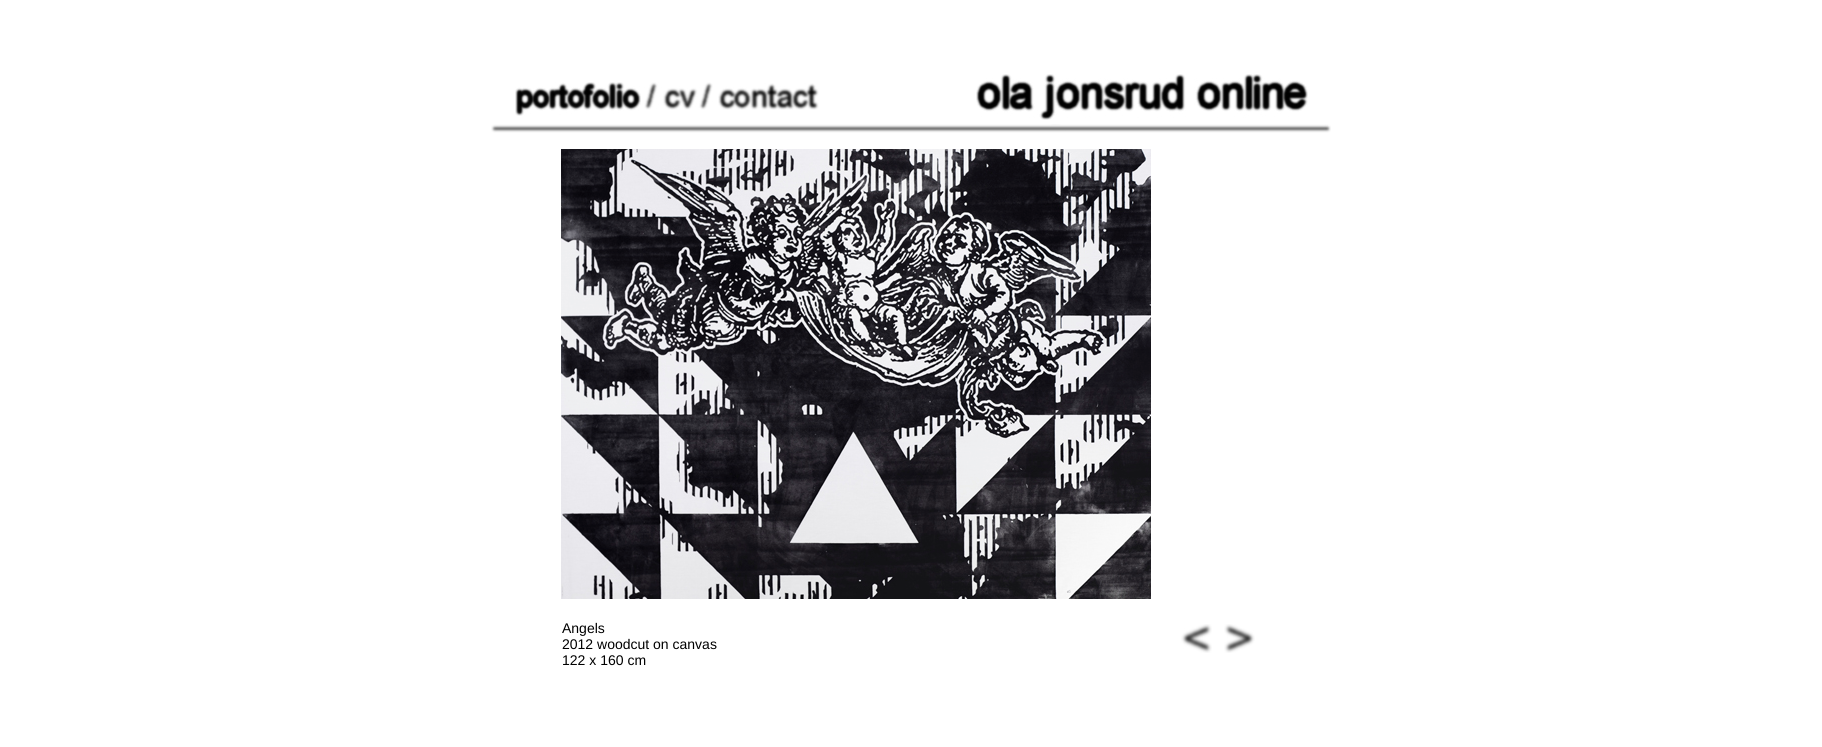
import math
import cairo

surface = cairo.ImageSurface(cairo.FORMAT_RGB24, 1822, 747)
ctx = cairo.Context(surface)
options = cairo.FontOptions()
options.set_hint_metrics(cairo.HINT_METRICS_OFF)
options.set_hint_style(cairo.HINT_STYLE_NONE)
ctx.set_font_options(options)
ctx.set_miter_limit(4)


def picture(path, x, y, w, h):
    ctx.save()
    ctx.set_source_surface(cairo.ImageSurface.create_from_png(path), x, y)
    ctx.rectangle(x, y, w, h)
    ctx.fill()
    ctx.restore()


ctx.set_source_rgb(1, 1, 1)
ctx.paint()
picture("img1.png", 515, 82, 126, 34)
picture("img2.png", 644, 82, 69, 28)
picture("img3.png", 718, 83, 101, 27)
picture("img4.png", 976, 74, 332, 46)
picture("img5.png", 491, 124, 840, 9)
picture("img6.png", 561, 149, 590, 450)
ctx.select_font_face("Liberation Sans")
ctx.set_font_size(14)
ctx.set_source_rgb(0, 0, 0)
ctx.move_to(562, 633)
ctx.show_text("Angels")
ctx.move_to(562, 649)
ctx.show_text("2012 woodcut on canvas")
ctx.move_to(562, 665)
ctx.show_text("122 x 160 cm")
picture("img7.png", 1181, 624, 31, 29)
picture("img8.png", 1224, 624, 31, 29)
surface.write_to_png("page.png")
